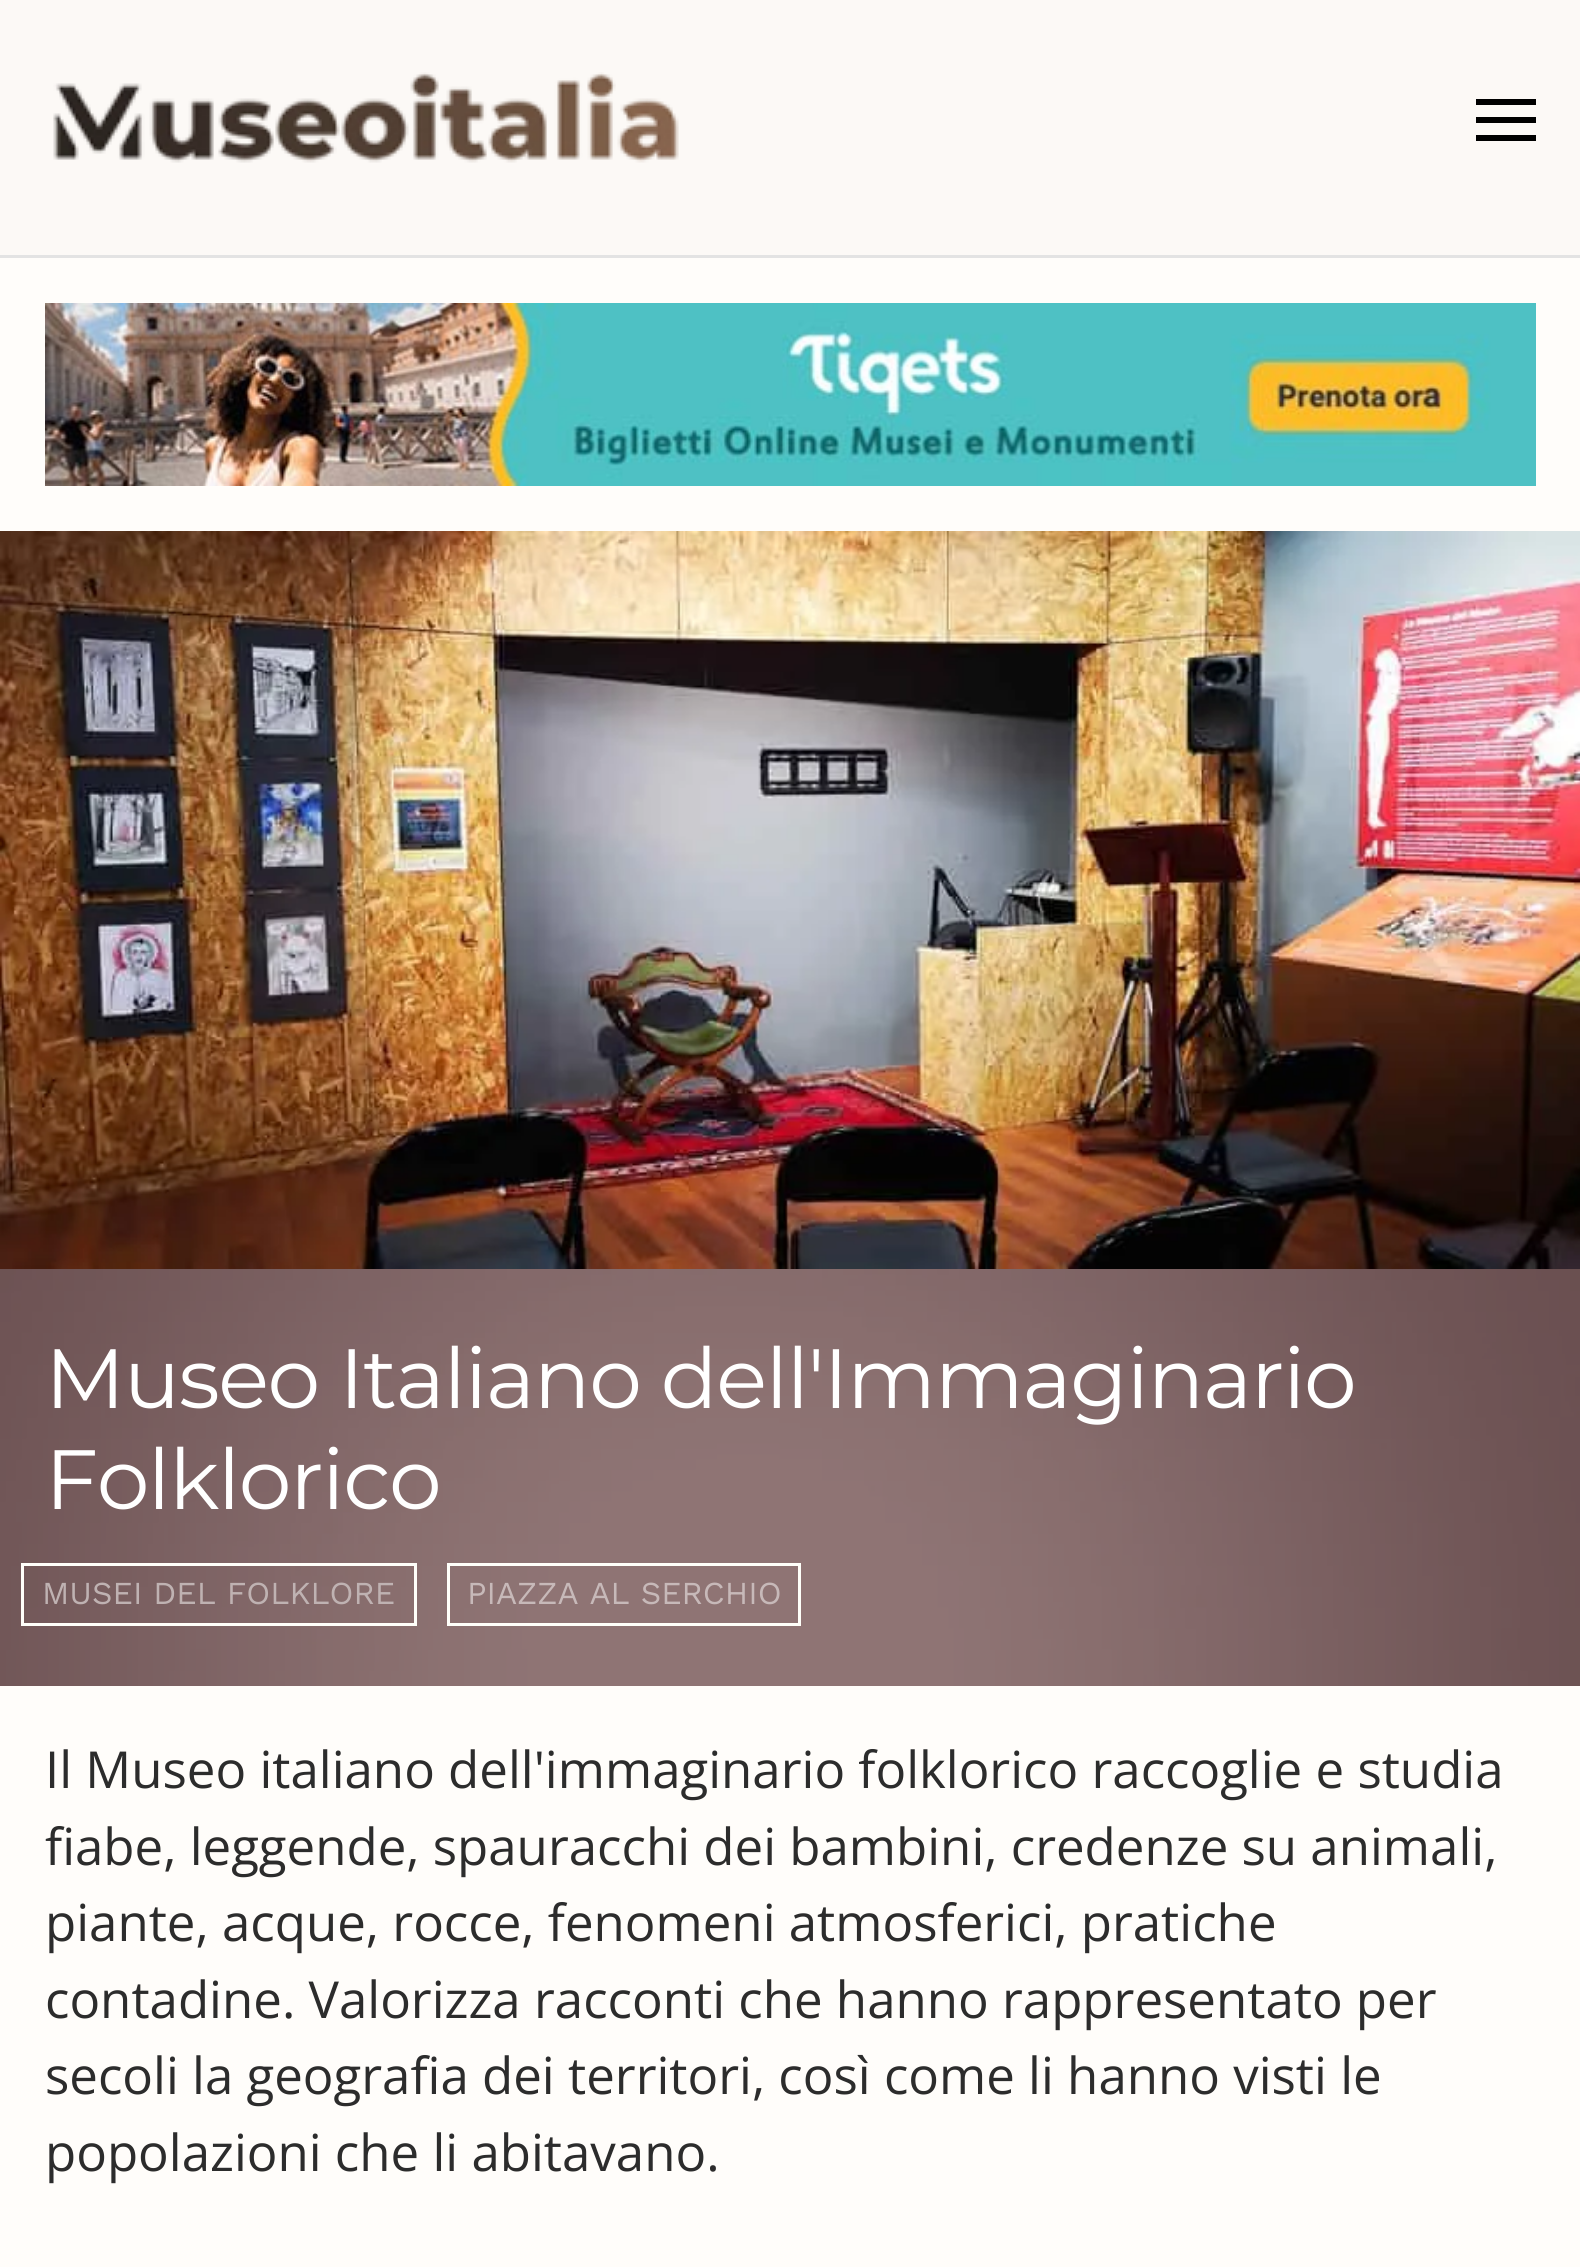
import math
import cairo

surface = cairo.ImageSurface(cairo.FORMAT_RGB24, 1580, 2267)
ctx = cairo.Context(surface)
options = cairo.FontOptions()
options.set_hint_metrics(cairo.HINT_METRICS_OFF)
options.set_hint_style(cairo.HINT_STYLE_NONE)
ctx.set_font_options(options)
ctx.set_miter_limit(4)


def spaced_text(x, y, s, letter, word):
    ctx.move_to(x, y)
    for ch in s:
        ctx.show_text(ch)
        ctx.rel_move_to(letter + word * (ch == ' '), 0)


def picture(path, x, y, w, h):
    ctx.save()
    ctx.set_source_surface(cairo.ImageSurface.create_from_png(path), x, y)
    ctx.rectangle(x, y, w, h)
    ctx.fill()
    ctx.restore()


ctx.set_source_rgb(1, 0.992, 0.98)
ctx.paint()
ctx.set_source_rgb(0.988, 0.976, 0.961)
ctx.rectangle(0, 0, 1580, 255)
ctx.fill()
ctx.set_source_rgb(0.89, 0.89, 0.89)
ctx.rectangle(0, 255, 1580, 3)
ctx.fill()
picture("img1.png", 53, 72, 626, 91)
ctx.set_source_rgb(0, 0, 0)
ctx.rectangle(1476, 99, 60, 6)
ctx.fill()
ctx.rectangle(1476, 117, 60, 6)
ctx.fill()
ctx.rectangle(1476, 135, 60, 6)
ctx.fill()
picture("img2.png", 45, 303, 1491, 183)
picture("img3.png", 0, 531, 1580, 738)
picture("img4.png", 0, 1269, 1580, 417)
ctx.select_font_face("Montserrat")
ctx.set_font_size(84)
ctx.set_source_rgb(1, 1, 1)
spaced_text(45, 1408, "Museo Italiano dell'Immaginario", -1.5, 0)
spaced_text(45, 1509, "Folklorico", -1.5, 0)
ctx.rectangle(22.5, 1564.5, 393, 60)
ctx.set_source_rgb(1, 1, 0.98)
ctx.set_line_width(3)
ctx.stroke()
ctx.select_font_face("Work Sans")
ctx.set_font_size(32)
ctx.set_source_rgb(0.749, 0.698, 0.698)
ctx.move_to(42, 1604)
ctx.show_text("MUSEI DEL FOLKLORE")
ctx.rectangle(448.5, 1564.5, 351, 60)
ctx.set_source_rgb(1, 1, 0.98)
ctx.stroke()
ctx.set_source_rgb(0.78, 0.725, 0.725)
ctx.move_to(467, 1604)
ctx.show_text("PIAZZA AL SERCHIO")
ctx.select_font_face("Open Sans")
ctx.set_font_size(51)
ctx.set_source_rgb(0.173, 0.173, 0.173)
ctx.move_to(45, 1788)
ctx.show_text("Il Museo italiano dell'immaginario folklorico raccoglie e studia")
ctx.move_to(45, 1865)
ctx.show_text("fiabe, leggende, spauracchi dei bambini, credenze su animali,")
ctx.move_to(45, 1941)
ctx.show_text("piante, acque, rocce, fenomeni atmosferici, pratiche")
ctx.move_to(45, 2018)
ctx.show_text("contadine. Valorizza racconti che hanno rappresentato per")
ctx.move_to(45, 2094)
ctx.show_text("secoli la geografia dei territori, così come li hanno visti le")
ctx.move_to(45, 2171)
ctx.show_text("popolazioni che li abitavano.")
surface.write_to_png("page.png")
